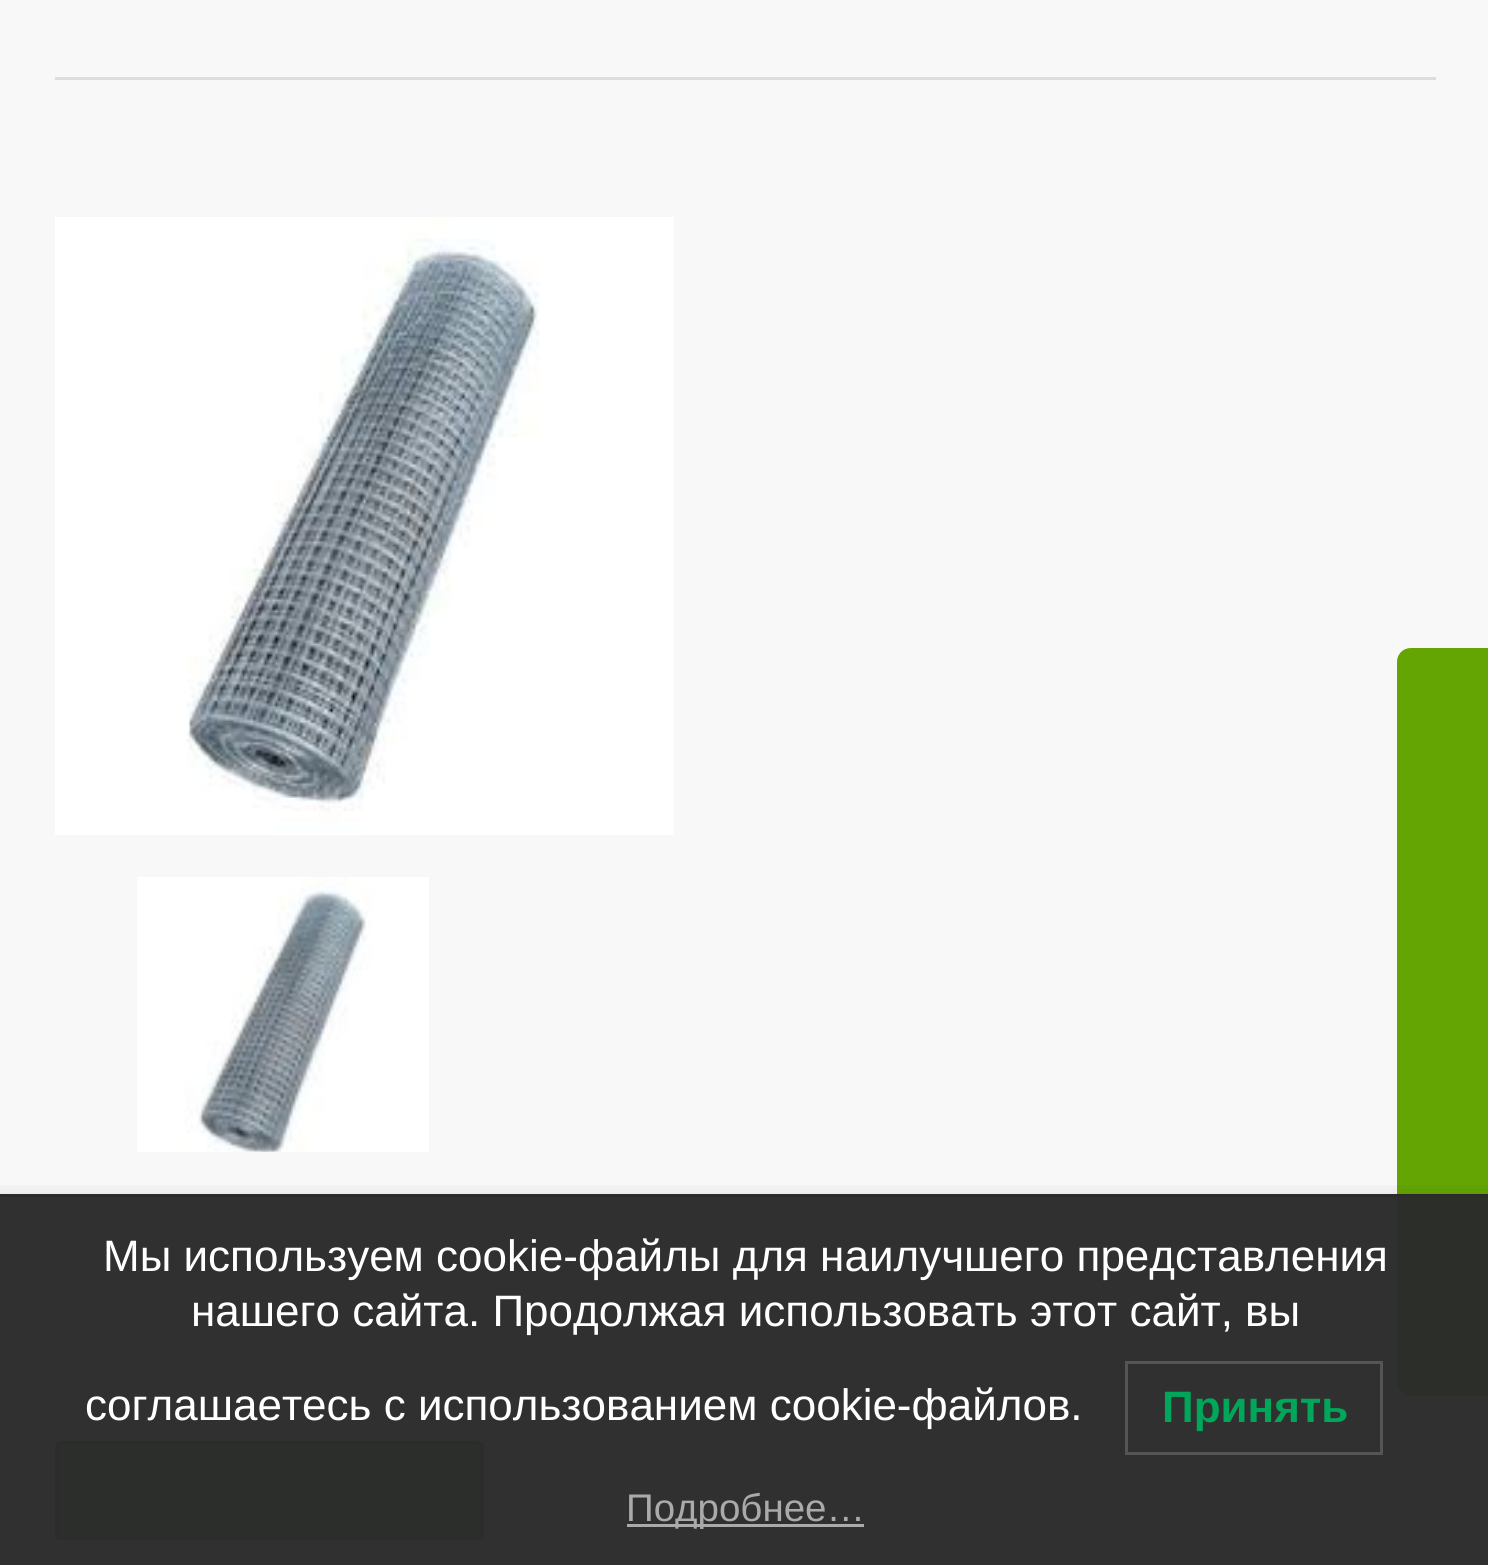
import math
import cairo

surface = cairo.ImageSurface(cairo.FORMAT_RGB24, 1488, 1565)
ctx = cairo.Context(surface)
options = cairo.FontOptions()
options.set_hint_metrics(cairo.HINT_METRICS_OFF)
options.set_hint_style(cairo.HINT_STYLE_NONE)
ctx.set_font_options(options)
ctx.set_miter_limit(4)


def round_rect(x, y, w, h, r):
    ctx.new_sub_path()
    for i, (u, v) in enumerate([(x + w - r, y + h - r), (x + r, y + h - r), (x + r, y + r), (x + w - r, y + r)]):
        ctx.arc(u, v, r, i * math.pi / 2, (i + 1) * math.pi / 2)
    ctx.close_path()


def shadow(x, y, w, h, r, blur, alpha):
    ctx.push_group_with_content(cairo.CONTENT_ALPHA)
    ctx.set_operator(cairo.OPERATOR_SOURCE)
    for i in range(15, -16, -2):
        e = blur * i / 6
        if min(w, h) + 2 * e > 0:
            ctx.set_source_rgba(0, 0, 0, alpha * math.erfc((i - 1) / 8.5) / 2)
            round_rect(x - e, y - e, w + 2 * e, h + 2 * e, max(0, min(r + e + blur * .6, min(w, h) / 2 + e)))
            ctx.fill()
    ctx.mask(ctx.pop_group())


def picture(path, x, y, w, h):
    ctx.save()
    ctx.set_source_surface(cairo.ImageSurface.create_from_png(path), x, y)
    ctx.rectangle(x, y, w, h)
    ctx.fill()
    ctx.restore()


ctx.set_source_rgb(0.969, 0.969, 0.969)
ctx.paint()
ctx.set_source_rgb(0.863, 0.867, 0.878)
ctx.rectangle(55, 77, 1381, 3)
ctx.fill()
picture("img1.png", 55, 217, 619, 618)
picture("img2.png", 137, 877, 292, 275)
ctx.set_source_rgb(0.227, 0.71, 0.22)
round_rect(55, 1441, 429, 99, 6)
ctx.fill()
round_rect(56.5, 1442.5, 426, 96, 4.5)
ctx.set_source_rgba(0.271, 0.282, 0.369, 0.5)
ctx.set_line_width(3)
ctx.stroke()
ctx.set_source_rgb(0.392, 0.647, 0.012)
ctx.new_path()
ctx.move_to(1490, 648)
ctx.line_to(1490, 1396)
ctx.line_to(1411, 1396)
ctx.curve_to(1403, 1396, 1397, 1389, 1397, 1382)
ctx.line_to(1397, 662)
ctx.curve_to(1397, 654, 1403, 648, 1411, 648)
ctx.close_path()
ctx.fill()
ctx.save()
ctx.rectangle(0, 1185, 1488, 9)
ctx.clip()
ctx.set_source_rgb(0, 0, 0)
shadow(0, 1194, 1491, 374, 0, 11, 0.1)
ctx.restore()
ctx.set_source_rgba(0.169, 0.169, 0.169, 0.97)
ctx.rectangle(0, 1197, 1488, 368)
ctx.fill()
ctx.set_source_rgb(0.169, 0.169, 0.169)
ctx.rectangle(0, 1194, 1488, 3)
ctx.fill()
ctx.select_font_face("Liberation Sans")
ctx.set_font_size(44)
ctx.set_source_rgb(1, 1, 1)
ctx.move_to(103, 1271)
ctx.show_text("Мы используем cookie-файлы для наилучшего представления")
ctx.move_to(191, 1326)
ctx.show_text("нашего сайта. Продолжая использовать этот сайт, вы")
ctx.move_to(85, 1420)
ctx.show_text("соглашаетесь с использованием cookie-файлов.")
ctx.rectangle(1126.5, 1362.5, 255, 91)
ctx.set_source_rgb(0.333, 0.333, 0.333)
ctx.stroke()
ctx.select_font_face("Liberation Sans", cairo.FONT_SLANT_NORMAL, cairo.FONT_WEIGHT_BOLD)
ctx.set_source_rgb(0, 0.651, 0.353)
ctx.move_to(1162, 1422)
ctx.show_text("Принять")
ctx.set_source_rgb(0.667, 0.667, 0.667)
ctx.rectangle(627, 1524, 237, 3)
ctx.fill()
ctx.select_font_face("Liberation Sans")
ctx.set_font_size(38.5)
ctx.move_to(626, 1521)
ctx.show_text("Подробнее…")
surface.write_to_png("page.png")
